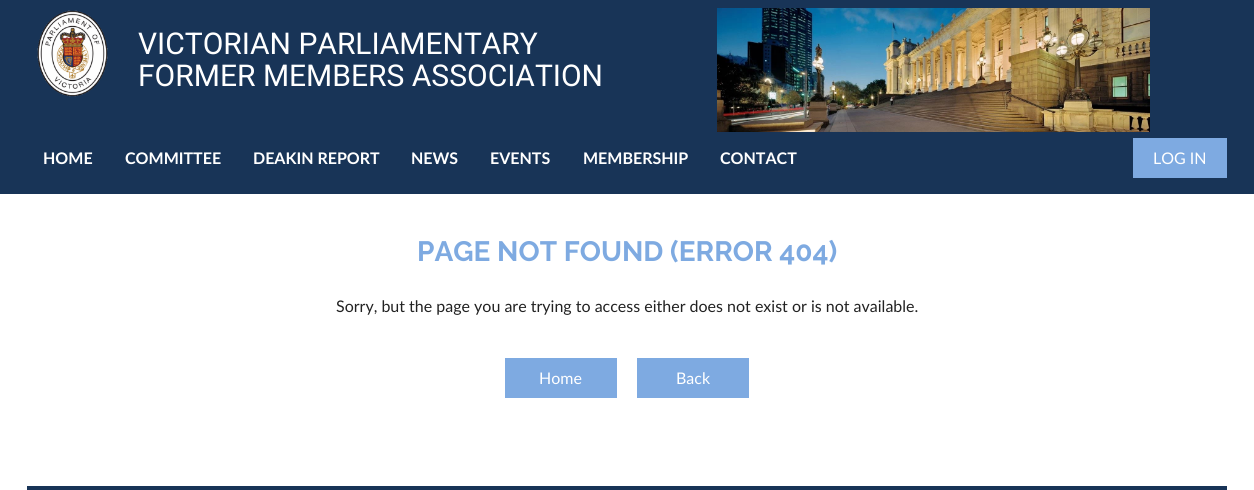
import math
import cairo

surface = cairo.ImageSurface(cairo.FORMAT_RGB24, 1254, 490)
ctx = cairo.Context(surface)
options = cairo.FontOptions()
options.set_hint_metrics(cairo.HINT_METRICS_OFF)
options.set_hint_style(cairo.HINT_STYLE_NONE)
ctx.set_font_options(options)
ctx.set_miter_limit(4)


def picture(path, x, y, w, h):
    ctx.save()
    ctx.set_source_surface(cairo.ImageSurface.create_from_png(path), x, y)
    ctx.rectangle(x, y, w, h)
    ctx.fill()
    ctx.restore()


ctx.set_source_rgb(1, 1, 1)
ctx.paint()
ctx.set_source_rgb(0.094, 0.204, 0.341)
ctx.rectangle(0, 0, 1254, 194)
ctx.fill()
picture("img1.png", 37, 10, 71, 87)
ctx.select_font_face("Roboto")
ctx.set_font_size(30)
ctx.set_source_rgb(1, 1, 1)
ctx.move_to(138, 54)
ctx.show_text("VICTORIAN PARLIAMENTARY")
ctx.move_to(138, 86)
ctx.show_text("FORMER MEMBERS ASSOCIATION")
picture("img2.png", 717, 8, 433, 124)
ctx.select_font_face("Lato", cairo.FONT_SLANT_NORMAL, cairo.FONT_WEIGHT_BOLD)
ctx.set_font_size(16)
ctx.move_to(43, 164)
ctx.show_text("HOME")
ctx.move_to(125, 164)
ctx.show_text("COMMITTEE")
ctx.move_to(253, 164)
ctx.show_text("DEAKIN REPORT")
ctx.move_to(411, 164)
ctx.show_text("NEWS")
ctx.move_to(490, 164)
ctx.show_text("EVENTS")
ctx.move_to(583, 164)
ctx.show_text("MEMBERSHIP")
ctx.move_to(720, 164)
ctx.show_text("CONTACT")
ctx.set_source_rgb(0.494, 0.667, 0.882)
ctx.rectangle(1133, 138, 94, 40)
ctx.fill()
ctx.select_font_face("Lato")
ctx.set_source_rgb(1, 1, 1)
ctx.move_to(1153, 164)
ctx.show_text("LOG IN")
ctx.select_font_face("Raleway", cairo.FONT_SLANT_NORMAL, cairo.FONT_WEIGHT_BOLD)
ctx.set_font_size(28)
ctx.set_source_rgb(0.494, 0.667, 0.882)
ctx.move_to(417, 261)
ctx.show_text("PAGE NOT FOUND (ERROR 404)")
ctx.select_font_face("Lato")
ctx.set_font_size(16)
ctx.set_source_rgb(0.133, 0.133, 0.133)
ctx.move_to(336, 312)
ctx.show_text("Sorry, but the page you are trying to access either does not exist or is not available.")
ctx.set_source_rgb(0.494, 0.667, 0.882)
ctx.rectangle(505, 358, 112, 40)
ctx.fill()
ctx.set_source_rgb(1, 1, 1)
ctx.move_to(539, 384)
ctx.show_text("Home")
ctx.set_source_rgb(0.494, 0.667, 0.882)
ctx.rectangle(637, 358, 112, 40)
ctx.fill()
ctx.set_source_rgb(1, 1, 1)
ctx.move_to(676, 384)
ctx.show_text("Back")
ctx.set_source_rgb(0.094, 0.204, 0.341)
ctx.rectangle(27, 486, 1200, 4)
ctx.fill()
surface.write_to_png("page.png")
